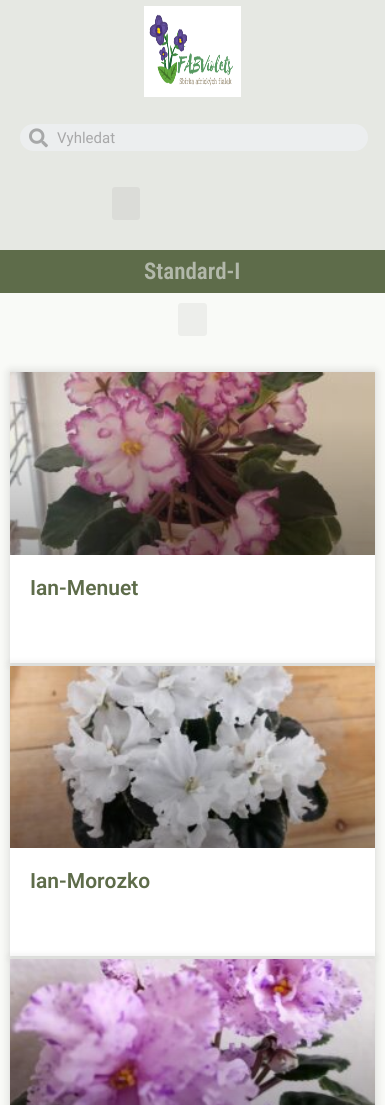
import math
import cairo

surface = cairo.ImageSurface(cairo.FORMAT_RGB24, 385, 1105)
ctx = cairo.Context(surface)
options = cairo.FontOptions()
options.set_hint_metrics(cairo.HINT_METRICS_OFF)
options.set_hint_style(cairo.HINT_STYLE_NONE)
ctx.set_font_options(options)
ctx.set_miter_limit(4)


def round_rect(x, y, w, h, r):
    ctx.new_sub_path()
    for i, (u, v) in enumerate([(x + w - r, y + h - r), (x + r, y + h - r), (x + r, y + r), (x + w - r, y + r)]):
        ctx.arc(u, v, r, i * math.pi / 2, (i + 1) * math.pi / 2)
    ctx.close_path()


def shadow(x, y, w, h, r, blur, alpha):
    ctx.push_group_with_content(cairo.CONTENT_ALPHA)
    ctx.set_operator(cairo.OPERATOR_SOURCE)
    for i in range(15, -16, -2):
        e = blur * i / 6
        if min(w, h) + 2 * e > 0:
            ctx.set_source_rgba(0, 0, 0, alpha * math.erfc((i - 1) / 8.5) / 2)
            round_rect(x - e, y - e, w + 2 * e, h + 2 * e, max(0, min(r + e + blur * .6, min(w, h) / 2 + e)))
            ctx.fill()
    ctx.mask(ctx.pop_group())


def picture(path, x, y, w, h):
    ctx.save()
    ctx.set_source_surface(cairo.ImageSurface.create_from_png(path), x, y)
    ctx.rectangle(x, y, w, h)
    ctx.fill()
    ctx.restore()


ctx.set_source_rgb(0.902, 0.91, 0.89)
ctx.paint()
picture("img1.png", 144, 6, 97, 91)
ctx.set_source_rgb(0.925, 0.933, 0.937)
round_rect(20, 124, 348, 27, 13.5)
ctx.fill()
picture("img2.png", 29, 128, 19, 20)
ctx.select_font_face("Roboto")
ctx.set_font_size(15)
ctx.set_source_rgb(0.659, 0.659, 0.663)
ctx.move_to(57, 143)
ctx.show_text("Vyhledat")
ctx.set_source_rgb(0.859, 0.863, 0.847)
round_rect(112, 187, 28, 33, 3)
ctx.fill()
ctx.set_source_rgb(0.369, 0.424, 0.29)
ctx.rectangle(0, 250, 385, 43)
ctx.fill()
ctx.select_font_face("Roboto Condensed SemiBold")
ctx.set_font_size(23)
ctx.set_source_rgb(0.698, 0.722, 0.667)
ctx.move_to(144, 279)
ctx.show_text("Standard-I")
ctx.set_source_rgb(0.976, 0.98, 0.965)
ctx.rectangle(0, 293, 385, 812)
ctx.fill()
ctx.set_source_rgb(0.929, 0.933, 0.918)
round_rect(178, 303, 29, 33, 3)
ctx.fill()
ctx.set_source_rgb(0, 0, 0)
shadow(10, 372, 365, 291, 0, 5, 0.15)
ctx.set_source_rgb(1, 1, 1)
ctx.rectangle(10, 555, 365, 108)
ctx.fill()
picture("img3.png", 10, 372, 365, 183)
ctx.select_font_face("Roboto SemiBold")
ctx.set_font_size(21)
ctx.set_source_rgb(0.369, 0.424, 0.29)
ctx.move_to(30, 595)
ctx.show_text("Ian-Menuet")
ctx.set_source_rgb(0, 0, 0)
shadow(10, 666, 365, 290, 0, 5, 0.15)
ctx.set_source_rgb(1, 1, 1)
ctx.rectangle(10, 848, 365, 108)
ctx.fill()
picture("img4.png", 10, 666, 365, 182)
ctx.set_source_rgb(0.369, 0.424, 0.29)
ctx.move_to(30, 888)
ctx.show_text("Ian-Morozko")
ctx.set_source_rgb(0, 0, 0)
shadow(10, 959, 365, 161, 0, 5, 0.15)
picture("img5.png", 10, 959, 365, 146)
surface.write_to_png("page.png")
